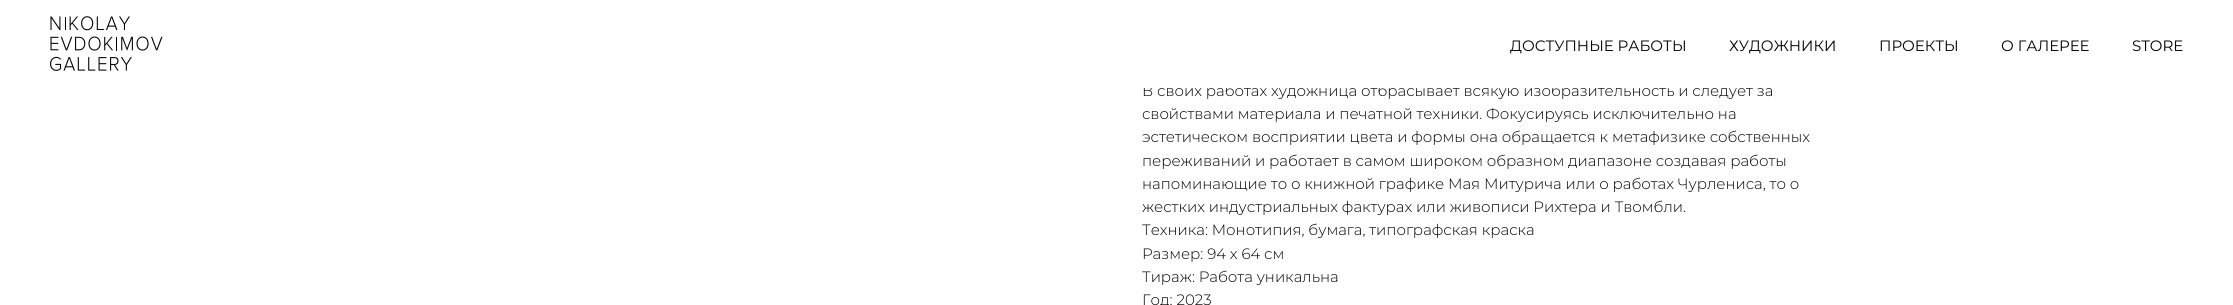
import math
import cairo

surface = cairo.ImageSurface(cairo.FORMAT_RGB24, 2233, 305)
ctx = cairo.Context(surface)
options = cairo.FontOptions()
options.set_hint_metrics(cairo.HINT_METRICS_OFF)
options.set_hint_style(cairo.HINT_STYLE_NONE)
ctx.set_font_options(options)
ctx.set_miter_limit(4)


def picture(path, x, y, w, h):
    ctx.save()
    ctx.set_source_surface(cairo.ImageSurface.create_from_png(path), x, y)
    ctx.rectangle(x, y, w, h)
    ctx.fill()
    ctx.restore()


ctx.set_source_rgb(1, 1, 1)
ctx.paint()
ctx.select_font_face("Montserrat Light")
ctx.set_font_size(15)
ctx.set_source_rgb(0, 0, 0)
ctx.move_to(1142, 96)
ctx.show_text("В своих работах художница отбрасывает всякую изобразительность и следует за")
ctx.set_source_rgb(1, 1, 1)
ctx.rectangle(1143, 84, 417, 4)
ctx.fill()
picture("img1.png", 50, 16, 113, 55)
ctx.select_font_face("Montserrat")
ctx.set_source_rgb(0, 0, 0)
ctx.move_to(1510, 51)
ctx.show_text("ДОСТУПНЫЕ РАБОТЫ")
ctx.move_to(1729, 51)
ctx.show_text("ХУДОЖНИКИ")
ctx.move_to(1879, 51)
ctx.show_text("ПРОЕКТЫ")
ctx.move_to(2001, 51)
ctx.show_text("О ГАЛЕРЕЕ")
ctx.move_to(2132, 51)
ctx.show_text("STORE")
ctx.select_font_face("Montserrat Light")
ctx.move_to(1142, 119)
ctx.show_text("свойствами материала и печатной техники. Фокусируясь исключительно на")
ctx.move_to(1142, 142)
ctx.show_text("эстетическом восприятии цвета и формы она обращается к метафизике собственных")
ctx.move_to(1142, 166)
ctx.show_text("переживаний и работает в самом широком образном диапазоне создавая работы")
ctx.move_to(1142, 189)
ctx.show_text("напоминающие то о книжной графике Мая Митурича или о работах Чурлениса, то о")
ctx.move_to(1142, 212)
ctx.show_text("жестких индустриальных фактурах или живописи Рихтера и Твомбли.")
ctx.move_to(1142, 235)
ctx.show_text("Техника: Mонотипия, бумага, типографская краска")
ctx.move_to(1142, 259)
ctx.show_text("Размер: 94 х 64 см")
ctx.move_to(1142, 282)
ctx.show_text("Тираж: Работа уникальна")
ctx.move_to(1142, 305)
ctx.show_text("Год: 2023")
surface.write_to_png("page.png")
